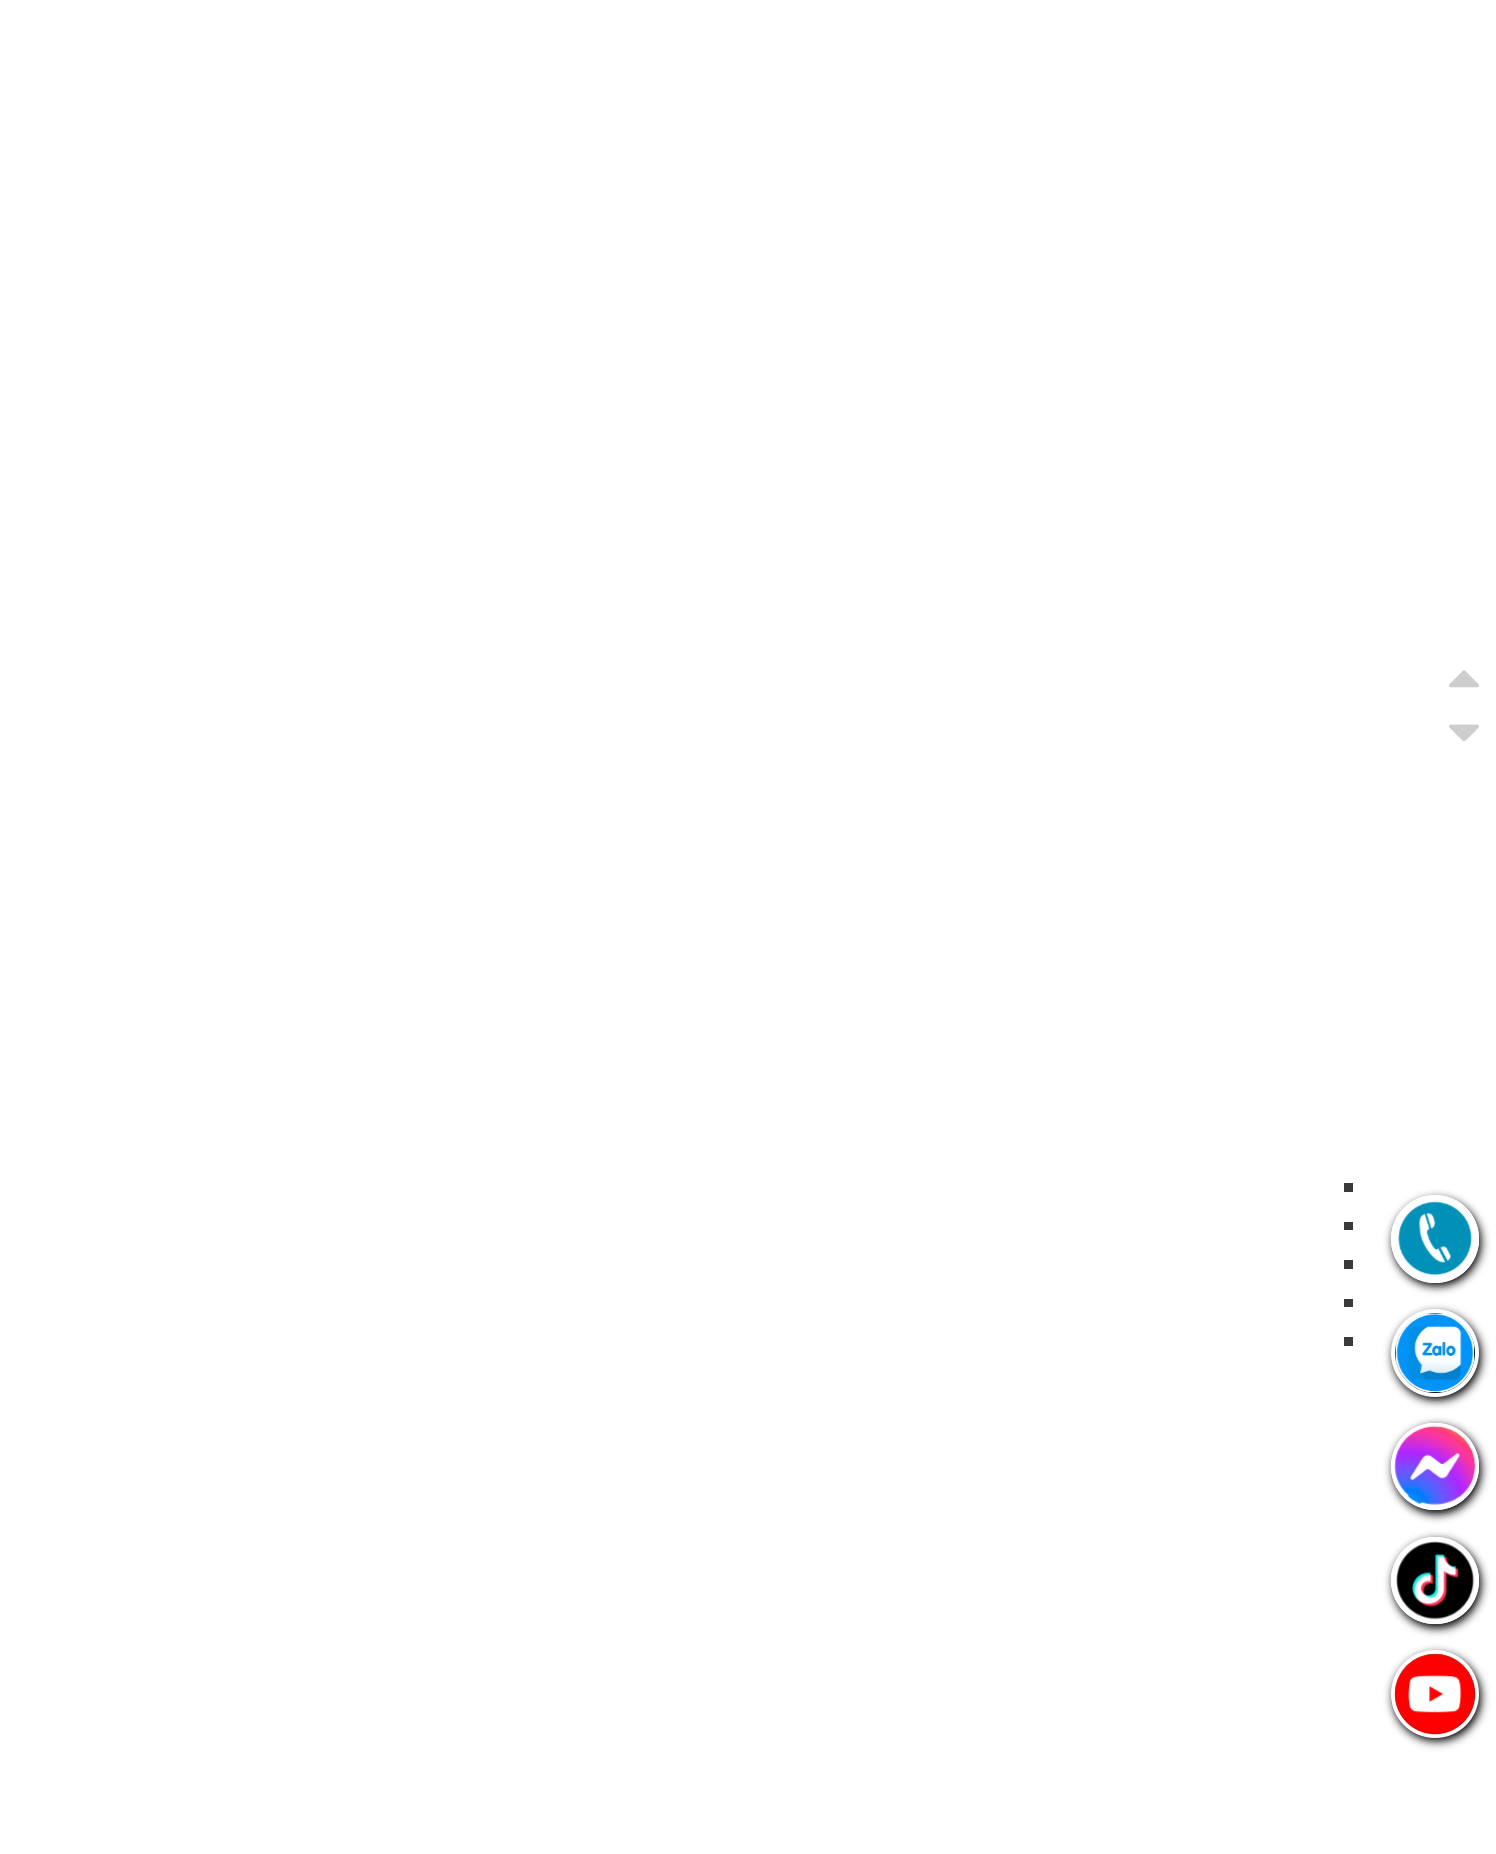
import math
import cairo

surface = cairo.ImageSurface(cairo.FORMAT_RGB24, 1496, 1854)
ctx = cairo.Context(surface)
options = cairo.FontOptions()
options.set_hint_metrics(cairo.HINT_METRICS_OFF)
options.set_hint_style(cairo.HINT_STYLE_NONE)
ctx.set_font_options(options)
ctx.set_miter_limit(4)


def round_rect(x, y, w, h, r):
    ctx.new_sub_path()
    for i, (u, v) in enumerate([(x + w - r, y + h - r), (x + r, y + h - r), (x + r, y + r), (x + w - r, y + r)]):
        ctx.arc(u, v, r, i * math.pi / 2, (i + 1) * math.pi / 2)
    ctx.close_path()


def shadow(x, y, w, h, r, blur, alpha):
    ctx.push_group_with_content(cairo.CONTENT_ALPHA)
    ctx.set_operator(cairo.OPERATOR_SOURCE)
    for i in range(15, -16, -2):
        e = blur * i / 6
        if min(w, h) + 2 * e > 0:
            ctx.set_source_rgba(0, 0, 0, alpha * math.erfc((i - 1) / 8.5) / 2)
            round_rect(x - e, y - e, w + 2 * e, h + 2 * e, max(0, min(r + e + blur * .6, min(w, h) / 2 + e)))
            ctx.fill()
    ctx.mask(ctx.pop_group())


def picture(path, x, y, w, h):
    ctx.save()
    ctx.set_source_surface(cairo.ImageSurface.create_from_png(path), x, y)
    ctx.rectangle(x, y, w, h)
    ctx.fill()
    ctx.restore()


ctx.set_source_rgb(1, 1, 1)
ctx.paint()
picture("img1.png", 1449, 670, 30, 18)
picture("img2.png", 1449, 724, 30, 18)
ctx.set_source_rgb(0.227, 0.227, 0.227)
ctx.rectangle(1344, 1183, 9, 9)
ctx.fill()
ctx.save()
ctx.set_fill_rule(cairo.FILL_RULE_EVEN_ODD)
ctx.new_path()
ctx.move_to(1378, 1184)
ctx.line_to(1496, 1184)
ctx.line_to(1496, 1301)
ctx.line_to(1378, 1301)
ctx.close_path()
ctx.move_to(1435, 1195)
ctx.curve_to(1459.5, 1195, 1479, 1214.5, 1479, 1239)
ctx.curve_to(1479, 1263.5, 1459.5, 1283, 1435, 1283)
ctx.curve_to(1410.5, 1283, 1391, 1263.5, 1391, 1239)
ctx.curve_to(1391, 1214.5, 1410.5, 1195, 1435, 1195)
ctx.close_path()
ctx.clip()
ctx.set_source_rgb(0, 0, 0)
shadow(1393, 1199, 88, 87, 43.5, 4.5, 1)
ctx.restore()
ctx.arc(1435, 1239, 42, 0, 2 * math.pi)
ctx.set_source_rgb(1, 1, 1)
ctx.set_line_width(4)
ctx.stroke()
picture("img3.png", 1398, 1201, 74, 75)
ctx.set_source_rgb(0.227, 0.227, 0.227)
ctx.rectangle(1344, 1222, 9, 8)
ctx.fill()
ctx.set_source_rgb(0, 0, 0)
shadow(1393, 1313, 88, 87, 43.5, 4.5, 1)
ctx.arc(1435, 1353, 42, 0, 2 * math.pi)
ctx.set_source_rgb(1, 1, 1)
ctx.stroke()
picture("img4.png", 1396, 1314, 78, 78)
ctx.set_source_rgb(0.227, 0.227, 0.227)
ctx.rectangle(1344, 1260, 9, 9)
ctx.fill()
ctx.save()
ctx.set_fill_rule(cairo.FILL_RULE_EVEN_ODD)
ctx.new_path()
ctx.move_to(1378, 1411)
ctx.line_to(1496, 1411)
ctx.line_to(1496, 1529)
ctx.line_to(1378, 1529)
ctx.close_path()
ctx.move_to(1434.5, 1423)
ctx.line_to(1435.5, 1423)
ctx.curve_to(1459.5, 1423, 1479, 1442.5, 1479, 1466.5)
ctx.curve_to(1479, 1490.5, 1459.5, 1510, 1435.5, 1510)
ctx.line_to(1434.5, 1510)
ctx.curve_to(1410.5, 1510, 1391, 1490.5, 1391, 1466.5)
ctx.curve_to(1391, 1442.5, 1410.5, 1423, 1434.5, 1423)
ctx.close_path()
ctx.clip()
ctx.set_source_rgb(0, 0, 0)
shadow(1393, 1426, 88, 88, 44, 4.5, 1)
ctx.restore()
round_rect(1393, 1425, 84, 83, 41.5)
ctx.set_source_rgb(1, 1, 1)
ctx.stroke()
picture("img5.png", 1394, 1425, 82, 80)
ctx.set_source_rgb(0.227, 0.227, 0.227)
ctx.rectangle(1344, 1299, 9, 8)
ctx.fill()
ctx.save()
ctx.set_fill_rule(cairo.FILL_RULE_EVEN_ODD)
ctx.new_path()
ctx.move_to(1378, 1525)
ctx.line_to(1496, 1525)
ctx.line_to(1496, 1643)
ctx.line_to(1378, 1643)
ctx.close_path()
ctx.move_to(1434.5, 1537)
ctx.line_to(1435.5, 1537)
ctx.curve_to(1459.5, 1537, 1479, 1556.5, 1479, 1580.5)
ctx.curve_to(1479, 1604.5, 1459.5, 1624, 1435.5, 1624)
ctx.line_to(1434.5, 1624)
ctx.curve_to(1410.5, 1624, 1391, 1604.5, 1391, 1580.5)
ctx.curve_to(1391, 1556.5, 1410.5, 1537, 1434.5, 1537)
ctx.close_path()
ctx.clip()
ctx.set_source_rgb(0, 0, 0)
shadow(1393, 1540, 88, 88, 44, 4.5, 1)
ctx.restore()
round_rect(1393, 1539, 84, 83, 41.5)
ctx.set_source_rgb(1, 1, 1)
ctx.stroke()
picture("img6.png", 1396, 1541, 79, 79)
ctx.set_source_rgb(0.227, 0.227, 0.227)
ctx.rectangle(1344, 1337, 9, 9)
ctx.fill()
ctx.set_source_rgb(0, 0, 0)
shadow(1393, 1654, 88, 87, 43.5, 4.5, 1)
ctx.arc(1435, 1694, 42, 0, 2 * math.pi)
ctx.set_source_rgb(1, 1, 1)
ctx.stroke()
picture("img7.png", 1394, 1653, 82, 82)
surface.write_to_png("page.png")
